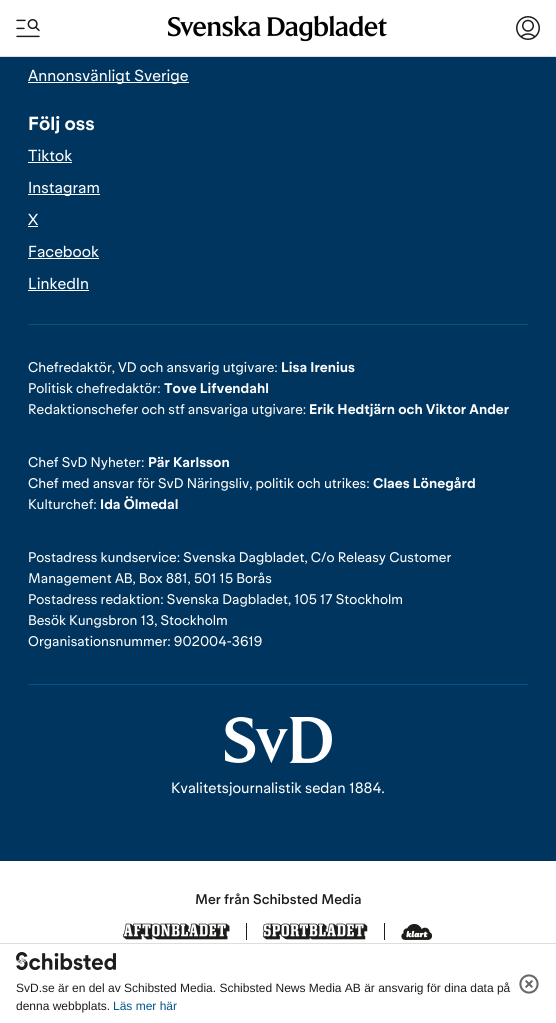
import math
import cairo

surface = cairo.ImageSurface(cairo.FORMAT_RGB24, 556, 1023)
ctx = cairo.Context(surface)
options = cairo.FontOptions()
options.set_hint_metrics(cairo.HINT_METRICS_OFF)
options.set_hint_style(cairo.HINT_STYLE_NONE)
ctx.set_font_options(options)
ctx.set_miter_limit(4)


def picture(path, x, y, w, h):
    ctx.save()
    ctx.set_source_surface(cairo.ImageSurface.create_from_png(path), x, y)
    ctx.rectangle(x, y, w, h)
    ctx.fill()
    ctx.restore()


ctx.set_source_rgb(1, 1, 1)
ctx.paint()
ctx.set_source_rgb(0.871, 0.871, 0.871)
ctx.rectangle(0, 56, 556, 1)
ctx.fill()
picture("img1.png", 16, 19, 24, 19)
picture("img2.png", 168, 15, 219, 27)
picture("img3.png", 516, 16, 24, 24)
ctx.set_source_rgb(0, 0.208, 0.373)
ctx.rectangle(0, 57, 556, 804)
ctx.fill()
ctx.set_source_rgb(1, 1, 1)
ctx.rectangle(28, 82, 161, 1)
ctx.fill()
ctx.select_font_face("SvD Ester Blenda")
ctx.set_font_size(16)
ctx.move_to(28, 81)
ctx.show_text("Annonsvänligt Sverige")
ctx.select_font_face("SvD Ester Blenda", cairo.FONT_SLANT_NORMAL, cairo.FONT_WEIGHT_BOLD)
ctx.set_font_size(19)
ctx.move_to(28, 130)
ctx.show_text("Följ oss")
ctx.select_font_face("SvD Ester Blenda")
ctx.set_font_size(16)
ctx.move_to(28, 161)
ctx.show_text("Tiktok")
ctx.rectangle(28, 162, 44, 1)
ctx.fill()
ctx.rectangle(28, 194, 72, 1)
ctx.fill()
ctx.move_to(28, 193)
ctx.show_text("Instagram")
ctx.move_to(28, 225)
ctx.show_text("X")
ctx.rectangle(28, 226, 10, 1)
ctx.fill()
ctx.move_to(28, 257)
ctx.show_text("Facebook")
ctx.rectangle(28, 258, 71, 1)
ctx.fill()
ctx.move_to(28, 289)
ctx.show_text("LinkedIn")
ctx.rectangle(28, 290, 61, 1)
ctx.fill()
ctx.set_source_rgb(0, 0.337, 0.541)
ctx.rectangle(28, 324, 500, 1)
ctx.fill()
ctx.set_font_size(14)
ctx.set_source_rgb(1, 1, 1)
ctx.move_to(28, 372)
ctx.show_text("Chefredaktör, VD och ansvarig utgivare:")
ctx.select_font_face("SvD Ester Blenda", cairo.FONT_SLANT_NORMAL, cairo.FONT_WEIGHT_BOLD)
ctx.move_to(281, 372)
ctx.show_text("Lisa Irenius")
ctx.select_font_face("SvD Ester Blenda")
ctx.move_to(28, 393)
ctx.show_text("Politisk chefredaktör:")
ctx.select_font_face("SvD Ester Blenda", cairo.FONT_SLANT_NORMAL, cairo.FONT_WEIGHT_BOLD)
ctx.move_to(164, 393)
ctx.show_text("Tove Lifvendahl")
ctx.select_font_face("SvD Ester Blenda")
ctx.move_to(28, 414)
ctx.show_text("Redaktionschefer och stf ansvariga utgivare:")
ctx.select_font_face("SvD Ester Blenda", cairo.FONT_SLANT_NORMAL, cairo.FONT_WEIGHT_BOLD)
ctx.move_to(309, 414)
ctx.show_text("Erik Hedtjärn och Viktor Ander")
ctx.select_font_face("SvD Ester Blenda")
ctx.move_to(28, 467)
ctx.show_text("Chef SvD Nyheter:")
ctx.select_font_face("SvD Ester Blenda", cairo.FONT_SLANT_NORMAL, cairo.FONT_WEIGHT_BOLD)
ctx.move_to(148, 467)
ctx.show_text("Pär Karlsson")
ctx.select_font_face("SvD Ester Blenda")
ctx.move_to(28, 488)
ctx.show_text("Chef med ansvar för SvD Näringsliv, politik och utrikes:")
ctx.select_font_face("SvD Ester Blenda", cairo.FONT_SLANT_NORMAL, cairo.FONT_WEIGHT_BOLD)
ctx.move_to(373, 488)
ctx.show_text("Claes Lönegård")
ctx.select_font_face("SvD Ester Blenda")
ctx.move_to(28, 509)
ctx.show_text("Kulturchef:")
ctx.select_font_face("SvD Ester Blenda", cairo.FONT_SLANT_NORMAL, cairo.FONT_WEIGHT_BOLD)
ctx.move_to(100, 509)
ctx.show_text("Ida Ölmedal")
ctx.select_font_face("SvD Ester Blenda")
ctx.move_to(28, 562)
ctx.show_text("Postadress kundservice: Svenska Dagbladet, C/o Releasy Customer")
ctx.move_to(28, 583)
ctx.show_text("Management AB, Box 881, 501 15 Borås")
ctx.move_to(28, 604)
ctx.show_text("Postadress redaktion: Svenska Dagbladet, 105 17 Stockholm")
ctx.move_to(28, 625)
ctx.show_text("Besök Kungsbron 13, Stockholm")
ctx.move_to(28, 646)
ctx.show_text("Organisationsnummer: 902004-3619")
ctx.set_source_rgb(0, 0.337, 0.541)
ctx.rectangle(28, 684, 500, 1)
ctx.fill()
picture("img4.png", 225, 717, 107, 46)
ctx.set_font_size(15)
ctx.set_source_rgb(1, 1, 1)
ctx.move_to(171, 793)
ctx.show_text("Kvalitetsjournalistik sedan 1884.")
ctx.select_font_face("SvD Ester Blenda Medium")
ctx.set_font_size(14)
ctx.set_source_rgb(0.114, 0.114, 0.106)
ctx.move_to(195, 904)
ctx.show_text("Mer från Schibsted Media")
picture("img5.png", 123, 923, 107, 17)
ctx.rectangle(246, 923, 1, 17)
ctx.fill()
picture("img6.png", 263, 923, 105, 17)
ctx.rectangle(384, 923, 1, 17)
ctx.fill()
picture("img7.png", 401, 924, 31, 16)
ctx.set_source_rgb(0.871, 0.871, 0.871)
ctx.rectangle(0, 943, 556, 1)
ctx.fill()
picture("img8.png", 16, 952, 100, 18)
ctx.select_font_face("Liberation Sans")
ctx.set_font_size(12)
ctx.set_source_rgb(0.114, 0.114, 0.106)
ctx.move_to(16, 992)
ctx.show_text("SvD.se är en del av Schibsted Media. Schibsted News Media AB är ansvarig för dina data på")
ctx.move_to(16, 1010)
ctx.show_text("denna webbplats.")
ctx.set_source_rgb(0, 0.337, 0.541)
ctx.move_to(113, 1010)
ctx.show_text("Läs mer här")
picture("img9.png", 519, 974, 20, 20)
surface.write_to_png("page.png")
